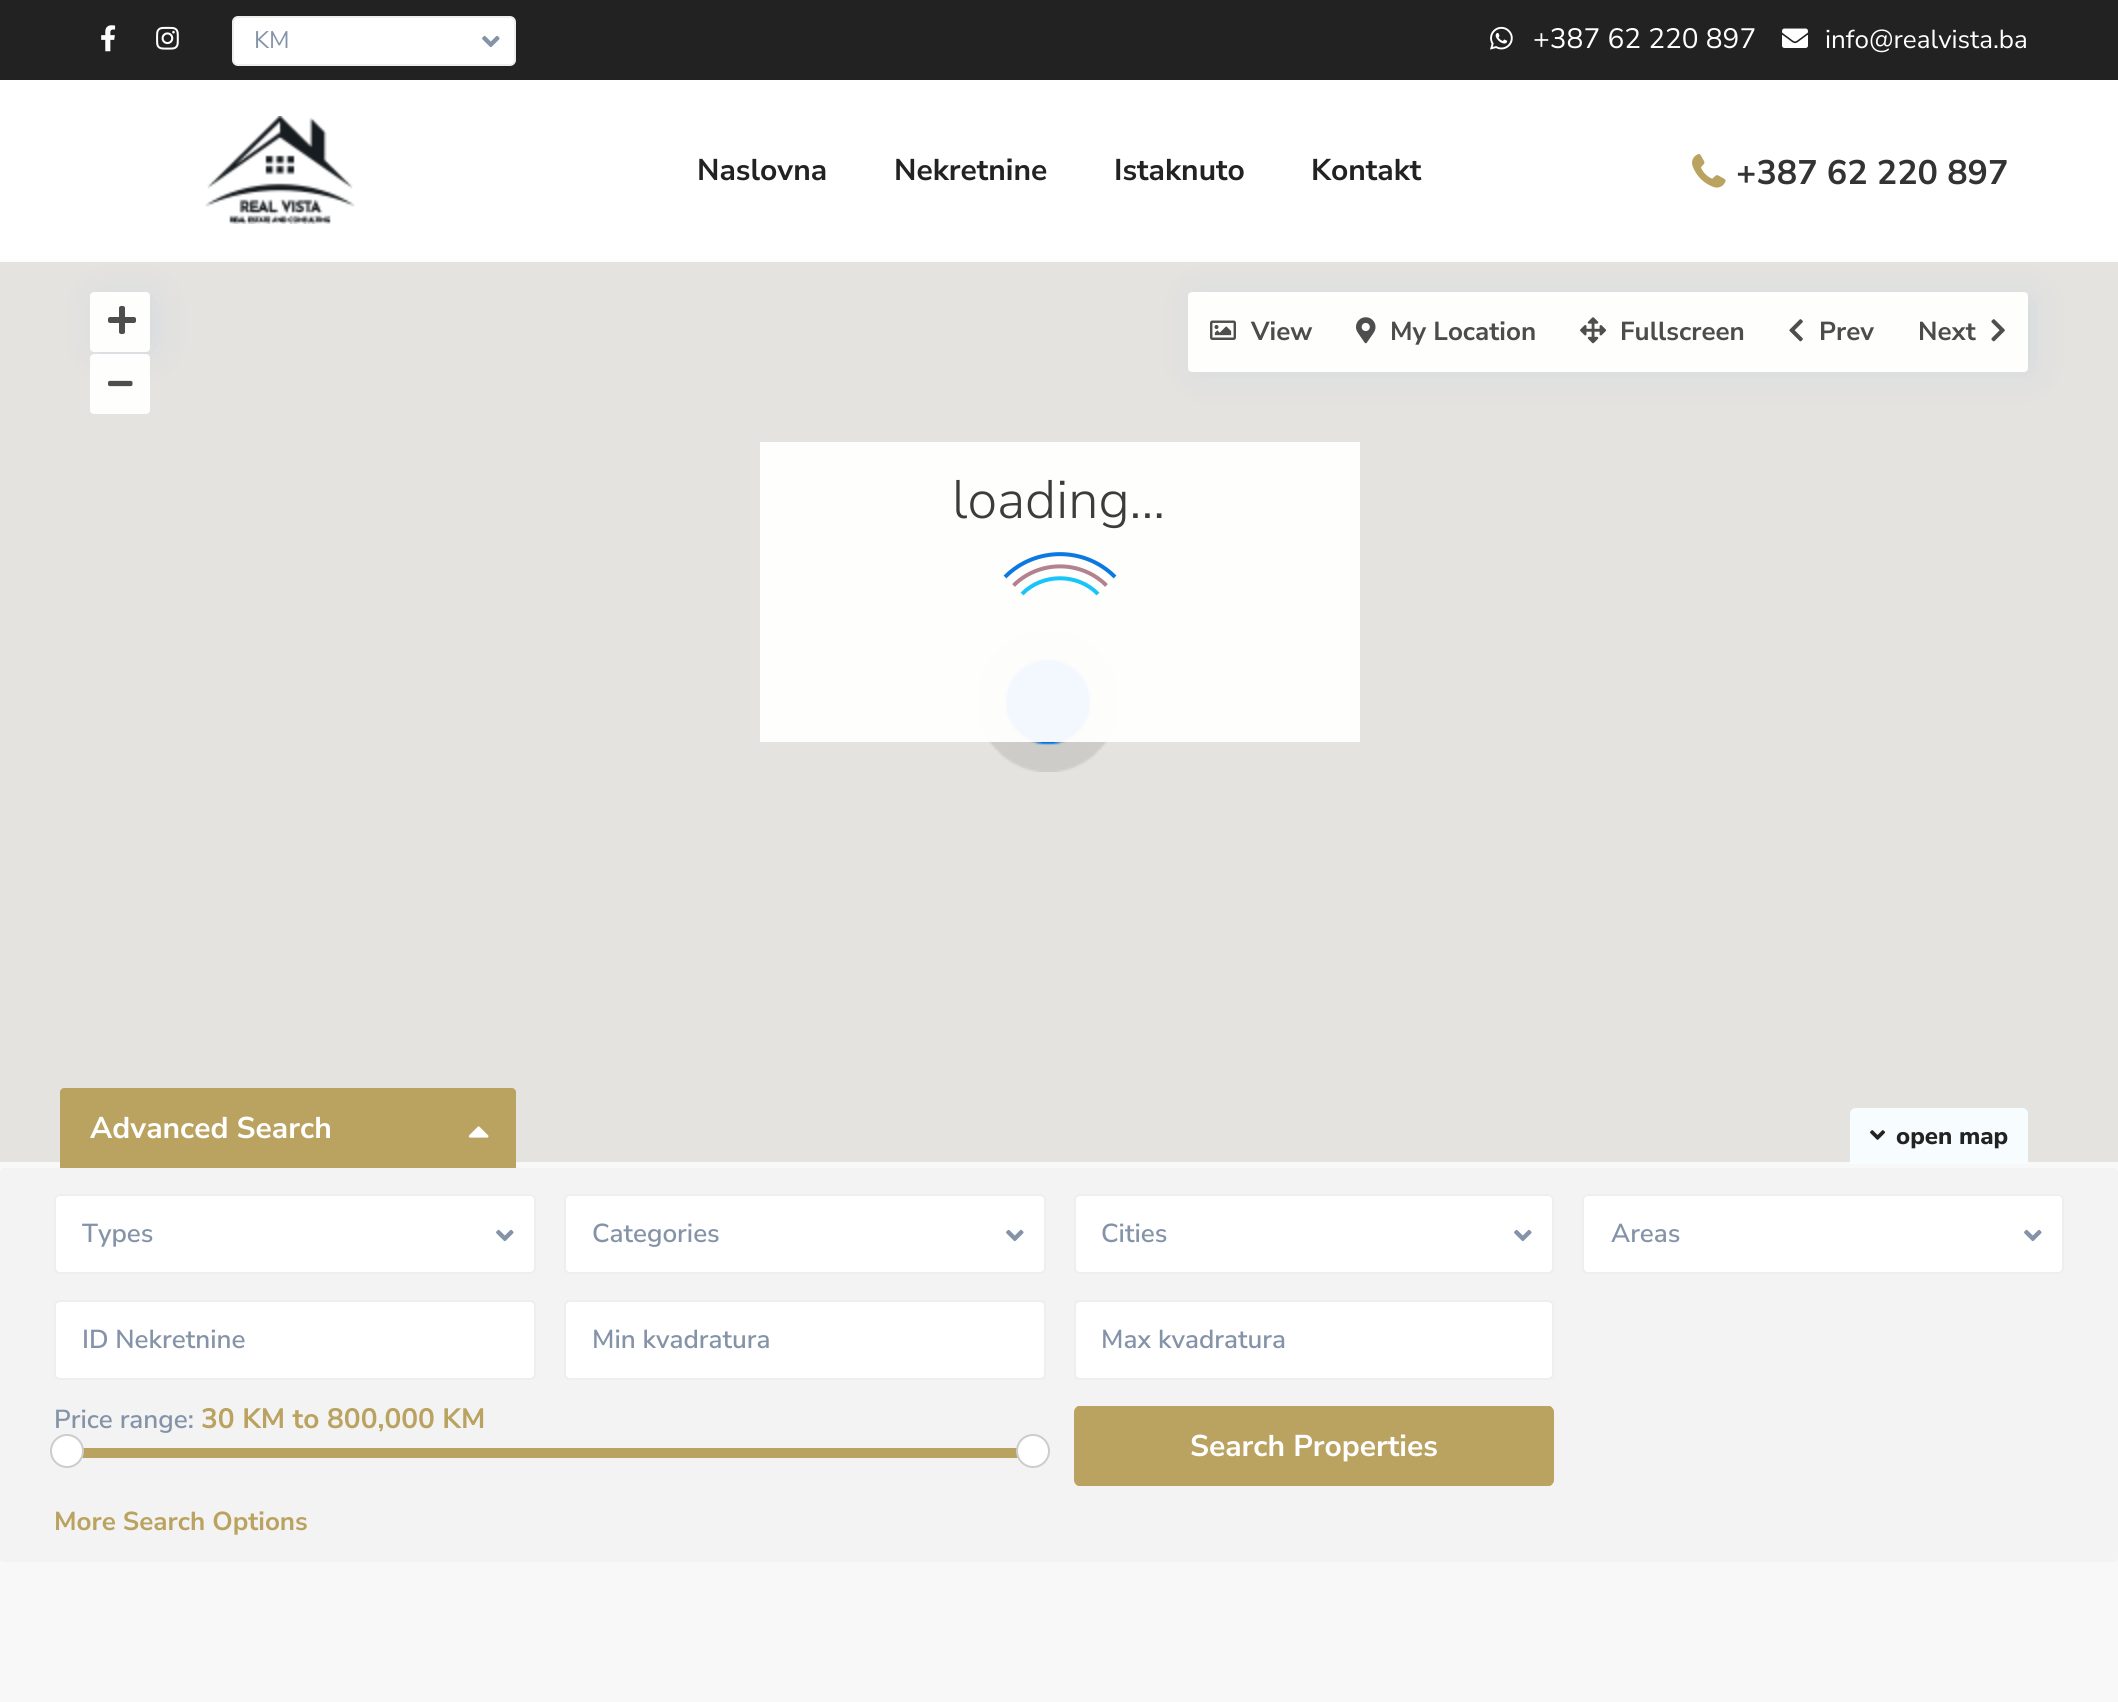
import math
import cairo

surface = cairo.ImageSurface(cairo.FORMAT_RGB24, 2118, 1702)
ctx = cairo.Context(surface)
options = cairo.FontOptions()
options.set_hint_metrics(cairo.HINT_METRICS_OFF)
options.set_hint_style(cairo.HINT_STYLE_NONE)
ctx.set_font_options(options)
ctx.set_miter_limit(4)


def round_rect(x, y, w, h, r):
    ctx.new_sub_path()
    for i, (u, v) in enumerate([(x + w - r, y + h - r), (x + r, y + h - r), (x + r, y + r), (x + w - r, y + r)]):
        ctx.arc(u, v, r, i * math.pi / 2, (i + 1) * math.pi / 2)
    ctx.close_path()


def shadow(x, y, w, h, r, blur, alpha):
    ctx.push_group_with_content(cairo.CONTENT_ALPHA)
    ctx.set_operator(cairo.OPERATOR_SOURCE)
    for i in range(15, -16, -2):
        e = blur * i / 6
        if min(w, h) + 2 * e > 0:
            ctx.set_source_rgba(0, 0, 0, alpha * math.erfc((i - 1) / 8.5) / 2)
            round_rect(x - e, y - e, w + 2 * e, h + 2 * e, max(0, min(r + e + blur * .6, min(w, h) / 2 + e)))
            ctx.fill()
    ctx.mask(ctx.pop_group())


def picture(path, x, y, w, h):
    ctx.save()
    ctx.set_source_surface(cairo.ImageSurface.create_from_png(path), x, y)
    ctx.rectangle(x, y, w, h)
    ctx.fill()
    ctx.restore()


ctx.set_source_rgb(0.969, 0.969, 0.969)
ctx.paint()
ctx.set_source_rgb(0.992, 0.992, 0.992)
ctx.rectangle(0, 260, 2118, 2)
ctx.fill()
ctx.set_source_rgb(0.898, 0.89, 0.875)
ctx.rectangle(0, 262, 2118, 900)
ctx.fill()
ctx.set_source_rgb(0, 0.431, 0.882)
shadow(96, 294, 60, 60, 4, 20, 0.08)
shadow(1194, 294, 840, 80, 4, 20, 0.08)
ctx.set_source_rgb(1, 1, 1)
ctx.rectangle(0, 80, 2118, 180)
ctx.fill()
ctx.set_source_rgb(0.133, 0.133, 0.133)
ctx.rectangle(0, 0, 2118, 80)
ctx.fill()
picture("img1.png", 101, 25, 15, 27)
picture("img2.png", 156, 26, 23, 24)
ctx.set_source_rgb(1, 1, 1)
round_rect(233, 17, 282, 48, 5)
ctx.fill_preserve()
ctx.set_source_rgb(0.933, 0.933, 0.933)
ctx.stroke()
ctx.select_font_face("Nunito Sans")
ctx.set_font_size(24)
ctx.set_source_rgb(0.522, 0.576, 0.663)
ctx.move_to(254, 48)
ctx.show_text("KM")
picture("img3.png", 482, 35, 18, 13)
picture("img4.png", 1490, 26, 23, 24)
ctx.set_font_size(28)
ctx.set_source_rgb(1, 1, 1)
ctx.move_to(1533, 48)
ctx.show_text("+387 62 220 897")
picture("img5.png", 1782, 28, 26, 20)
ctx.set_font_size(26)
ctx.move_to(1825, 48)
ctx.show_text("info@realvista.ba")
picture("img6.png", 205, 116, 150, 108)
ctx.select_font_face("Nunito Sans", cairo.FONT_SLANT_NORMAL, cairo.FONT_WEIGHT_BOLD)
ctx.set_font_size(30)
ctx.set_source_rgb(0.133, 0.133, 0.133)
ctx.move_to(697, 180)
ctx.show_text("Naslovna")
ctx.move_to(894, 180)
ctx.show_text("Nekretnine")
ctx.move_to(1114, 180)
ctx.show_text("Istaknuto")
ctx.move_to(1311, 180)
ctx.show_text("Kontakt")
picture("img7.png", 1692, 154, 34, 34)
ctx.set_font_size(34)
ctx.set_source_rgb(0.2, 0.2, 0.2)
ctx.move_to(1736, 184)
ctx.show_text("+387 62 220 897")
picture("img8.png", 978, 632, 140, 140)
ctx.set_source_rgba(1, 1, 1, 0.95)
ctx.rectangle(760, 442, 600, 300)
ctx.fill()
ctx.select_font_face("Nunito Sans Light")
ctx.set_font_size(54)
ctx.set_source_rgb(0.235, 0.235, 0.235)
ctx.move_to(952, 518)
ctx.show_text("loading...")
ctx.new_path()
ctx.move_to(1005, 577)
ctx.curve_to(1035, 546.5, 1085, 546.5, 1115, 577)
ctx.set_source_rgb(0.043, 0.475, 0.882)
ctx.set_line_width(4)
ctx.stroke()
ctx.new_path()
ctx.move_to(1013.5, 585.5)
ctx.curve_to(1039, 560, 1081, 560, 1106.5, 585.5)
ctx.set_source_rgb(0.702, 0.51, 0.565)
ctx.stroke()
ctx.new_path()
ctx.move_to(1022, 594)
ctx.curve_to(1042.5, 573, 1077.5, 573, 1098, 594)
ctx.set_source_rgb(0.094, 0.773, 0.969)
ctx.stroke()
ctx.set_source_rgb(0.996, 0.996, 0.992)
round_rect(90, 292, 60, 60, 4)
ctx.fill()
picture("img9.png", 108, 306, 28, 28)
round_rect(1188, 292, 840, 80, 4)
ctx.fill()
picture("img10.png", 1210, 320, 26, 20)
ctx.select_font_face("Nunito Sans", cairo.FONT_SLANT_NORMAL, cairo.FONT_WEIGHT_BOLD)
ctx.set_font_size(26)
ctx.set_source_rgb(0.298, 0.298, 0.298)
ctx.move_to(1251, 340)
ctx.show_text("View")
picture("img11.png", 1356, 317, 20, 27)
ctx.move_to(1390, 340)
ctx.show_text("My Location")
picture("img12.png", 1580, 317, 26, 27)
ctx.move_to(1620, 340)
ctx.show_text("Fullscreen")
picture("img13.png", 1789, 319, 14, 23)
ctx.move_to(1819, 340)
ctx.show_text("Prev")
ctx.move_to(1918, 340)
ctx.show_text("Next")
picture("img14.png", 1991, 319, 14, 23)
ctx.set_source_rgba(1, 1, 1, 0.95)
round_rect(90, 354, 60, 60, 4)
ctx.fill()
picture("img15.png", 108, 380, 25, 7)
ctx.set_source_rgb(0.965, 0.988, 1)
ctx.new_path()
ctx.move_to(1856, 1108)
ctx.line_to(2022, 1108)
ctx.curve_to(2025.5, 1108, 2028, 1110.5, 2028, 1114)
ctx.line_to(2028, 1164)
ctx.line_to(1850, 1164)
ctx.line_to(1850, 1114)
ctx.curve_to(1850, 1110.5, 1852.5, 1108, 1856, 1108)
ctx.close_path()
ctx.fill()
picture("img16.png", 1870, 1130, 15, 10)
ctx.select_font_face("Nunito Sans ExtraBold")
ctx.set_font_size(24)
ctx.set_source_rgb(0.133, 0.133, 0.133)
ctx.move_to(1896, 1144)
ctx.show_text("open map")
ctx.set_source_rgb(0.729, 0.639, 0.376)
ctx.new_path()
ctx.move_to(64, 1088)
ctx.line_to(512, 1088)
ctx.curve_to(514, 1088, 516, 1090, 516, 1092)
ctx.line_to(516, 1168)
ctx.line_to(60, 1168)
ctx.line_to(60, 1092)
ctx.curve_to(60, 1090, 62, 1088, 64, 1088)
ctx.close_path()
ctx.fill()
ctx.select_font_face("Nunito Sans", cairo.FONT_SLANT_NORMAL, cairo.FONT_WEIGHT_BOLD)
ctx.set_font_size(30)
ctx.set_source_rgb(1, 1, 1)
ctx.move_to(90, 1138)
ctx.show_text("Advanced Search")
picture("img17.png", 468, 1126, 21, 12)
ctx.set_source_rgb(0.953, 0.953, 0.953)
round_rect(0, 1168, 2118, 394, 4)
ctx.fill()
ctx.set_source_rgb(1, 1, 1)
round_rect(55, 1195, 480, 78, 5)
ctx.fill_preserve()
ctx.set_source_rgb(0.933, 0.933, 0.933)
ctx.set_line_width(2)
ctx.stroke()
ctx.select_font_face("Nunito Sans SemiBold")
ctx.set_font_size(26)
ctx.set_source_rgb(0.522, 0.576, 0.663)
ctx.move_to(82, 1242)
ctx.show_text("Types")
picture("img3.png", 496, 1229, 18, 13)
ctx.set_source_rgb(1, 1, 1)
round_rect(565, 1195, 480, 78, 5)
ctx.fill_preserve()
ctx.set_source_rgb(0.933, 0.933, 0.933)
ctx.stroke()
ctx.set_source_rgb(0.522, 0.576, 0.663)
ctx.move_to(592, 1242)
ctx.show_text("Categories")
picture("img3.png", 1006, 1229, 18, 13)
ctx.set_source_rgb(1, 1, 1)
round_rect(1075, 1195, 478, 78, 5)
ctx.fill_preserve()
ctx.set_source_rgb(0.933, 0.933, 0.933)
ctx.stroke()
ctx.set_source_rgb(0.522, 0.576, 0.663)
ctx.move_to(1101, 1242)
ctx.show_text("Cities")
picture("img3.png", 1514, 1229, 18, 13)
ctx.set_source_rgb(1, 1, 1)
round_rect(1583, 1195, 480, 78, 5)
ctx.fill_preserve()
ctx.set_source_rgb(0.933, 0.933, 0.933)
ctx.stroke()
ctx.set_source_rgb(0.522, 0.576, 0.663)
ctx.move_to(1611, 1242)
ctx.show_text("Areas")
picture("img3.png", 2024, 1229, 18, 13)
ctx.set_source_rgb(1, 1, 1)
round_rect(55, 1301, 480, 78, 5)
ctx.fill_preserve()
ctx.set_source_rgb(0.933, 0.933, 0.933)
ctx.stroke()
ctx.set_source_rgb(0.522, 0.576, 0.663)
ctx.move_to(82, 1348)
ctx.show_text("ID Nekretnine")
ctx.set_source_rgb(1, 1, 1)
round_rect(565, 1301, 480, 78, 5)
ctx.fill_preserve()
ctx.set_source_rgb(0.933, 0.933, 0.933)
ctx.stroke()
ctx.set_source_rgb(0.522, 0.576, 0.663)
ctx.move_to(592, 1348)
ctx.show_text("Min kvadratura")
ctx.set_source_rgb(1, 1, 1)
round_rect(1075, 1301, 478, 78, 5)
ctx.fill_preserve()
ctx.set_source_rgb(0.933, 0.933, 0.933)
ctx.stroke()
ctx.set_source_rgb(0.522, 0.576, 0.663)
ctx.move_to(1101, 1348)
ctx.show_text("Max kvadratura")
ctx.move_to(54, 1428)
ctx.show_text("Price range:")
ctx.select_font_face("Nunito Sans", cairo.FONT_SLANT_NORMAL, cairo.FONT_WEIGHT_BOLD)
ctx.set_font_size(28)
ctx.set_source_rgb(0.729, 0.639, 0.376)
ctx.move_to(201, 1428)
ctx.show_text("30 KM to 800,000 KM")
ctx.rectangle(82, 1448, 936, 10)
ctx.fill()
ctx.set_source_rgb(1, 1, 1)
ctx.arc(67, 1451, 16, 0, 2 * math.pi)
ctx.fill_preserve()
ctx.set_source_rgb(0.8, 0.8, 0.8)
ctx.stroke()
ctx.set_source_rgb(1, 1, 1)
ctx.arc(1033, 1451, 16, 0, 2 * math.pi)
ctx.fill_preserve()
ctx.set_source_rgb(0.8, 0.8, 0.8)
ctx.stroke()
ctx.save()
round_rect(1074, 1406, 480, 80, 6)
ctx.clip()
ctx.set_source_rgb(0.729, 0.639, 0.376)
ctx.rectangle(1076, 1406, 476, 80)
ctx.fill()
ctx.restore()
round_rect(1075, 1407, 478, 78, 5)
ctx.set_source_rgb(0.729, 0.639, 0.376)
ctx.stroke()
ctx.set_font_size(30)
ctx.set_source_rgb(1, 1, 1)
ctx.move_to(1190, 1456)
ctx.show_text("Search Properties")
ctx.set_font_size(26)
ctx.set_source_rgb(0.729, 0.639, 0.376)
ctx.move_to(54, 1530)
ctx.show_text("More Search Options")
surface.write_to_png("page.png")
